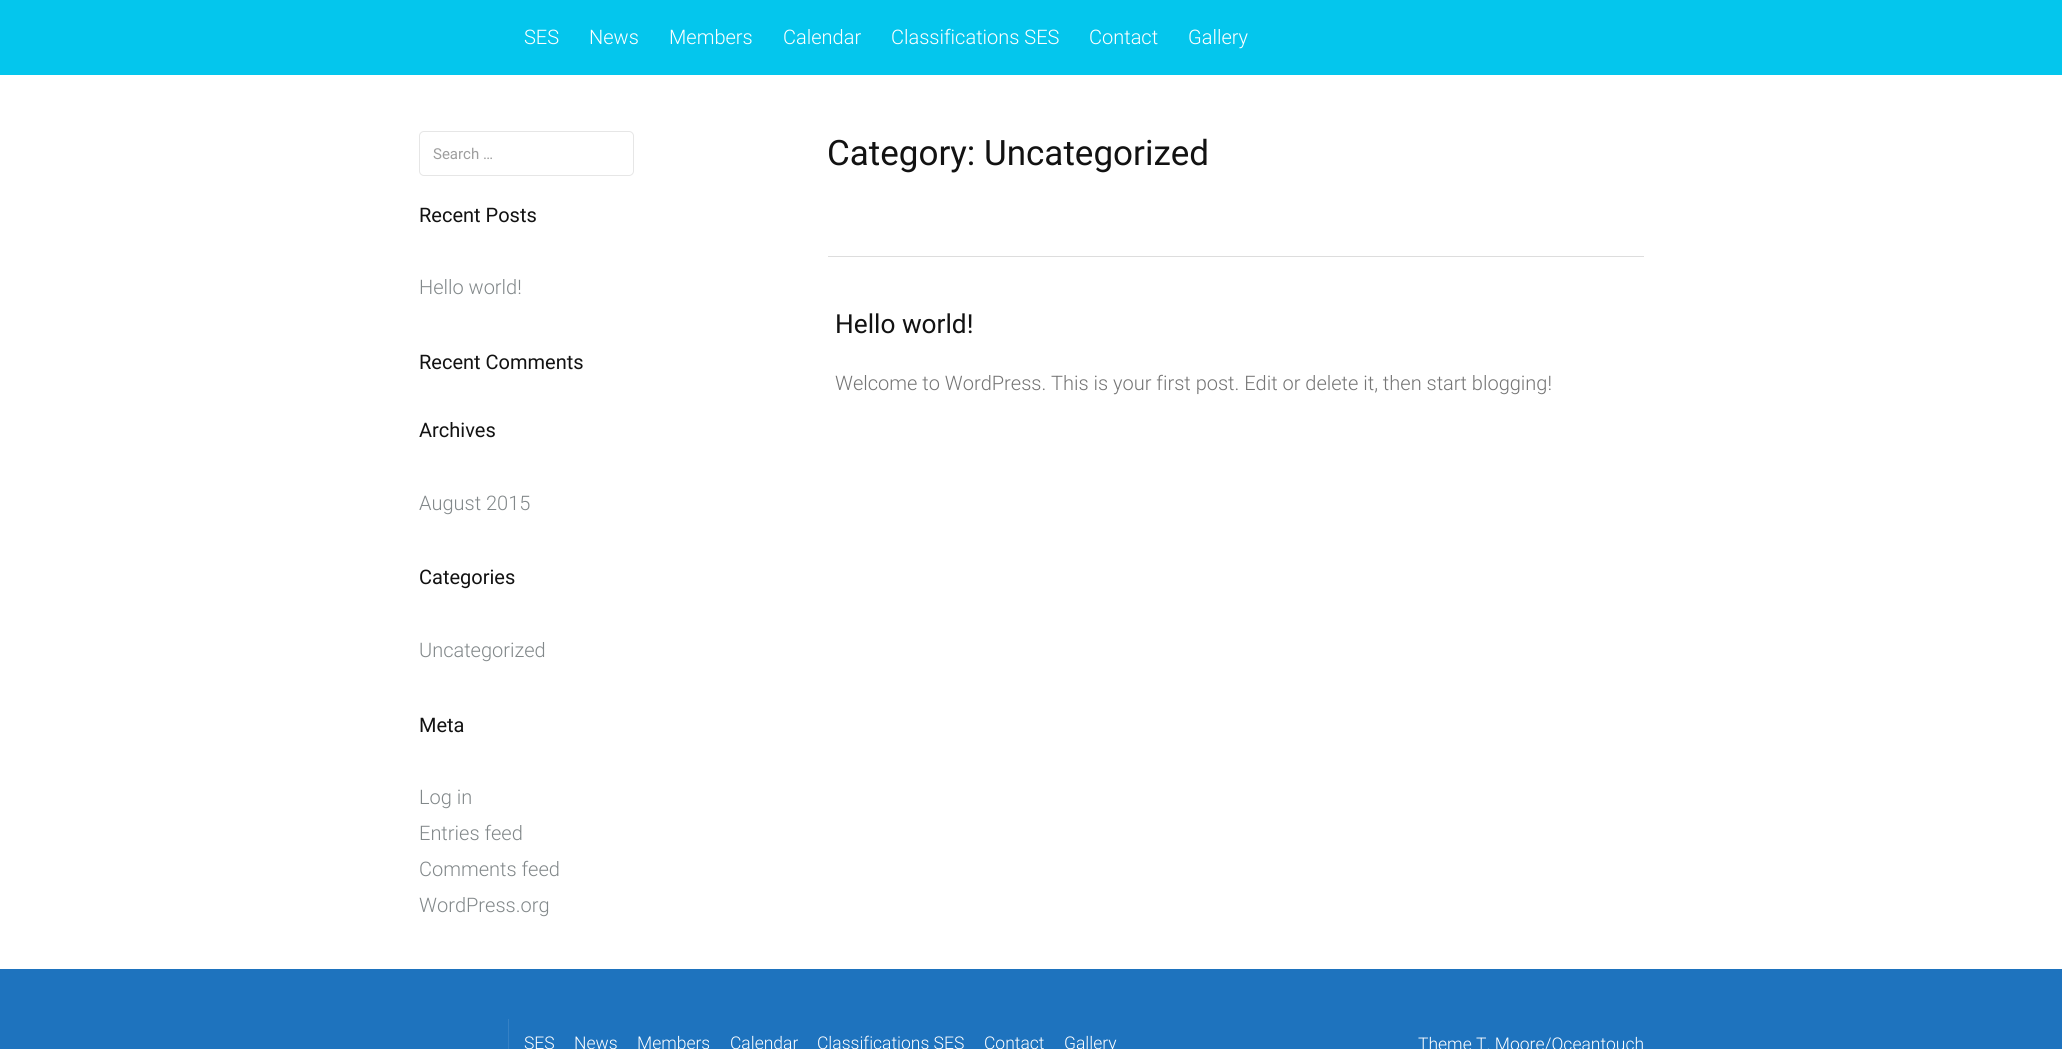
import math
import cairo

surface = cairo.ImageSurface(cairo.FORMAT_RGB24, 2062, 1049)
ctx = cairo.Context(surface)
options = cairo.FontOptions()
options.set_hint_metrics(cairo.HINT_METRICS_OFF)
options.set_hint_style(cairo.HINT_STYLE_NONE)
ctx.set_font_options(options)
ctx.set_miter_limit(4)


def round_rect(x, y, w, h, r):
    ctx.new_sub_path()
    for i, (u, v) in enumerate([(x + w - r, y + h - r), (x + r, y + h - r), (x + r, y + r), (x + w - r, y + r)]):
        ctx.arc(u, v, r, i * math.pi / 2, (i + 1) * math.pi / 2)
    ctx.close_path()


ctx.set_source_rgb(1, 1, 1)
ctx.paint()
ctx.set_source_rgb(0.016, 0.776, 0.929)
ctx.rectangle(0, 0, 2062, 75)
ctx.fill()
ctx.select_font_face("Roboto Light")
ctx.set_font_size(20)
ctx.set_source_rgb(1, 1, 1)
ctx.move_to(524, 44)
ctx.show_text("SES")
ctx.move_to(589, 44)
ctx.show_text("News")
ctx.move_to(669, 44)
ctx.show_text("Members")
ctx.move_to(783, 44)
ctx.show_text("Calendar")
ctx.move_to(891, 44)
ctx.show_text("Classifications SES")
ctx.move_to(1089, 44)
ctx.show_text("Contact")
ctx.move_to(1188, 44)
ctx.show_text("Gallery")
round_rect(419.5, 131.5, 214, 44, 4.5)
ctx.set_source_rgb(0.902, 0.902, 0.902)
ctx.set_line_width(1)
ctx.stroke()
ctx.select_font_face("Roboto")
ctx.set_font_size(15)
ctx.set_source_rgb(0.62, 0.62, 0.62)
ctx.move_to(433, 159)
ctx.show_text("Search …")
ctx.set_font_size(20)
ctx.set_source_rgb(0.071, 0.071, 0.071)
ctx.move_to(419, 222)
ctx.show_text("Recent Posts")
ctx.select_font_face("Roboto Light")
ctx.set_source_rgb(0.51, 0.533, 0.541)
ctx.move_to(419, 294)
ctx.show_text("Hello world!")
ctx.select_font_face("Roboto")
ctx.set_source_rgb(0.071, 0.071, 0.071)
ctx.move_to(419, 369)
ctx.show_text("Recent Comments")
ctx.move_to(419, 437)
ctx.show_text("Archives")
ctx.select_font_face("Roboto Light")
ctx.set_source_rgb(0.51, 0.533, 0.541)
ctx.move_to(419, 510)
ctx.show_text("August 2015")
ctx.select_font_face("Roboto")
ctx.set_source_rgb(0.071, 0.071, 0.071)
ctx.move_to(419, 584)
ctx.show_text("Categories")
ctx.select_font_face("Roboto Light")
ctx.set_source_rgb(0.51, 0.533, 0.541)
ctx.move_to(419, 657)
ctx.show_text("Uncategorized")
ctx.select_font_face("Roboto")
ctx.set_source_rgb(0.071, 0.071, 0.071)
ctx.move_to(419, 732)
ctx.show_text("Meta")
ctx.select_font_face("Roboto Light")
ctx.set_source_rgb(0.51, 0.533, 0.541)
ctx.move_to(419, 804)
ctx.show_text("Log in")
ctx.move_to(419, 840)
ctx.show_text("Entries feed")
ctx.move_to(419, 876)
ctx.show_text("Comments feed")
ctx.move_to(419, 912)
ctx.show_text("WordPress.org")
ctx.select_font_face("Roboto")
ctx.set_font_size(35)
ctx.set_source_rgb(0.071, 0.071, 0.071)
ctx.move_to(827, 165)
ctx.show_text("Category: Uncategorized")
ctx.set_source_rgb(0.867, 0.867, 0.867)
ctx.rectangle(828, 256, 816, 1)
ctx.fill()
ctx.set_font_size(26.25)
ctx.set_source_rgb(0.071, 0.071, 0.071)
ctx.move_to(835, 333)
ctx.show_text("Hello world!")
ctx.select_font_face("Roboto Light")
ctx.set_font_size(20)
ctx.set_source_rgb(0.459, 0.459, 0.459)
ctx.move_to(835, 390)
ctx.show_text("Welcome to WordPress. This is your first post. Edit or delete it, then start blogging!")
ctx.set_source_rgb(0.118, 0.451, 0.745)
ctx.rectangle(0, 969, 2062, 80)
ctx.fill()
ctx.set_source_rgb(0.208, 0.506, 0.773)
ctx.rectangle(508, 1019, 1, 30)
ctx.fill()
ctx.set_font_size(17.5)
ctx.set_source_rgb(1, 1, 1)
ctx.move_to(524, 1049)
ctx.show_text("SES")
ctx.move_to(574, 1049)
ctx.show_text("News")
ctx.move_to(637, 1049)
ctx.show_text("Members")
ctx.move_to(730, 1049)
ctx.show_text("Calendar")
ctx.move_to(817, 1049)
ctx.show_text("Classifications SES")
ctx.move_to(984, 1049)
ctx.show_text("Contact")
ctx.move_to(1064, 1049)
ctx.show_text("Gallery")
ctx.move_to(1418, 1050)
ctx.show_text("Theme T. Moore/Oceantouch")
surface.write_to_png("page.png")
